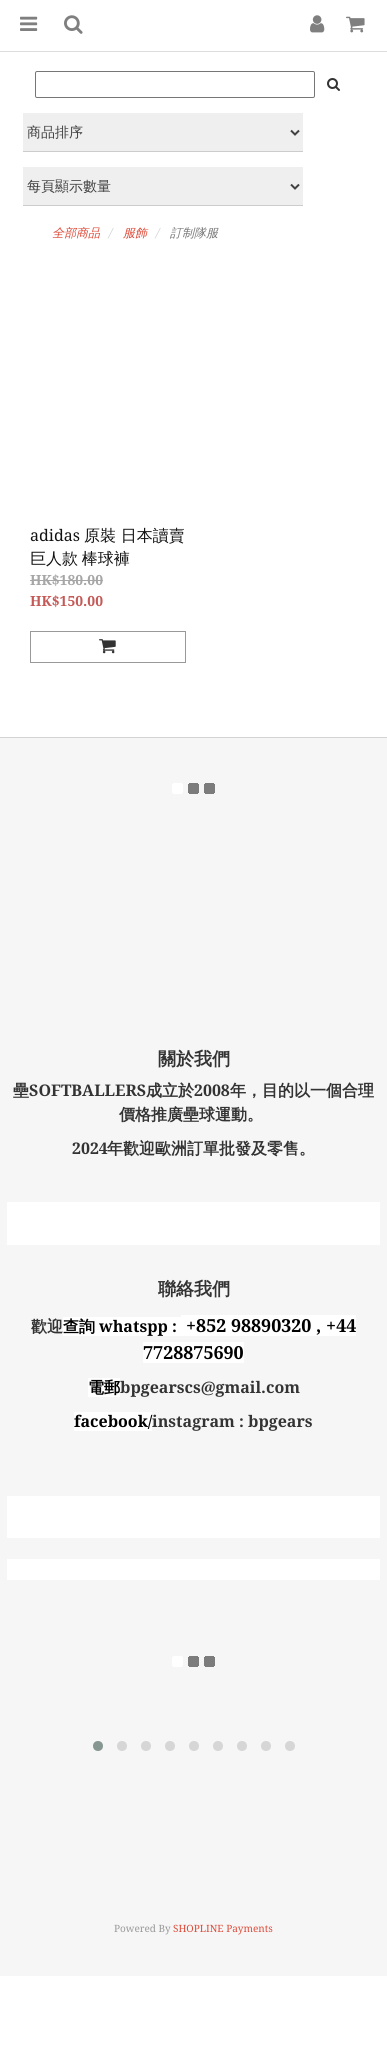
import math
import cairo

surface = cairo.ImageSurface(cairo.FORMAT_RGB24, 387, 2050)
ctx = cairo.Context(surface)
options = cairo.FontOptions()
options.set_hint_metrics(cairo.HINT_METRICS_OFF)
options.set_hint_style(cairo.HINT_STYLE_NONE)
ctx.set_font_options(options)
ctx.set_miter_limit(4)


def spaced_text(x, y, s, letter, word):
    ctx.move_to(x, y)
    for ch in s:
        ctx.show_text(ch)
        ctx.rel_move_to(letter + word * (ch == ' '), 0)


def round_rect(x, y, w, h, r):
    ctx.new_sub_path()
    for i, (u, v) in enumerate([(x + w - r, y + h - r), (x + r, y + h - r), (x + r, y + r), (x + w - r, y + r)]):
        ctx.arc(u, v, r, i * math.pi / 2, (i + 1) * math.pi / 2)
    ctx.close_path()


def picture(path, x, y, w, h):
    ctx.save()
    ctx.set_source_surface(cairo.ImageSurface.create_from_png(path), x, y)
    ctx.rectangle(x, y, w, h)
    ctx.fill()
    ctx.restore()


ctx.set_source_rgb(1, 1, 1)
ctx.paint()
ctx.set_source_rgb(0.867, 0.867, 0.867)
ctx.rectangle(0, 51, 387, 1)
ctx.fill()
picture("img1.png", 20, 16, 18, 15)
picture("img2.png", 64, 15, 19, 19)
picture("img3.png", 310, 15, 15, 18)
picture("img4.png", 346, 16, 19, 17)
round_rect(35.5, 71.5, 279, 26, 1.5)
ctx.set_source_rgb(0.463, 0.463, 0.463)
ctx.set_line_width(1)
ctx.stroke()
picture("img5.png", 327, 78, 13, 13)
ctx.set_source_rgb(0.937, 0.937, 0.937)
ctx.rectangle(23, 113, 280, 38)
ctx.fill()
ctx.set_source_rgb(0.8, 0.8, 0.8)
ctx.rectangle(23, 151, 280, 1)
ctx.fill()
ctx.new_path()
ctx.move_to(291, 130.5)
ctx.line_to(295, 134.5)
ctx.line_to(299, 130.5)
ctx.set_source_rgb(0.251, 0.251, 0.251)
ctx.set_line_width(2)
ctx.stroke()
ctx.select_font_face("WenQuanYi Zen Hei Medium")
ctx.set_font_size(14)
ctx.move_to(27, 137)
ctx.show_text("商品排序")
ctx.set_source_rgb(0.937, 0.937, 0.937)
ctx.rectangle(23, 167, 280, 38)
ctx.fill()
ctx.set_source_rgb(0.8, 0.8, 0.8)
ctx.rectangle(23, 205, 280, 1)
ctx.fill()
ctx.new_path()
ctx.move_to(291, 184.5)
ctx.line_to(295, 188.5)
ctx.line_to(299, 184.5)
ctx.set_source_rgb(0.251, 0.251, 0.251)
ctx.stroke()
ctx.move_to(27, 191)
ctx.show_text("每頁顯示數量")
ctx.select_font_face("WenQuanYi Zen Hei Medium", cairo.FONT_SLANT_ITALIC)
ctx.set_font_size(12)
ctx.set_source_rgb(0.867, 0.294, 0.224)
ctx.move_to(52, 237)
ctx.show_text("全部商品")
ctx.select_font_face("Droid Serif", cairo.FONT_SLANT_ITALIC)
ctx.set_source_rgb(0.8, 0.8, 0.8)
ctx.move_to(108, 237)
ctx.show_text("/")
ctx.select_font_face("WenQuanYi Zen Hei Medium", cairo.FONT_SLANT_ITALIC)
ctx.set_source_rgb(0.867, 0.294, 0.224)
ctx.move_to(123, 237)
ctx.show_text("服飾")
ctx.select_font_face("Droid Serif", cairo.FONT_SLANT_ITALIC)
ctx.set_source_rgb(0.8, 0.8, 0.8)
ctx.move_to(155, 237)
ctx.show_text("/")
ctx.select_font_face("WenQuanYi Zen Hei Medium", cairo.FONT_SLANT_ITALIC)
ctx.set_source_rgb(0.467, 0.467, 0.467)
ctx.move_to(170, 237)
ctx.show_text("訂制隊服")
ctx.select_font_face("Droid Serif")
ctx.set_font_size(16)
ctx.set_source_rgb(0.067, 0.067, 0.067)
ctx.move_to(30, 541)
ctx.show_text("adidas")
ctx.select_font_face("WenQuanYi Zen Hei Medium")
ctx.move_to(84, 541)
ctx.show_text("原裝 日本讀賣")
spaced_text(30, 564, "巨人款 棒球褲", 0, -1)
ctx.select_font_face("Droid Serif", cairo.FONT_SLANT_NORMAL, cairo.FONT_WEIGHT_BOLD)
ctx.set_font_size(14)
ctx.set_source_rgb(0.651, 0.651, 0.651)
ctx.move_to(30, 585)
ctx.show_text("HK$180.00")
ctx.rectangle(30, 580, 73, 1)
ctx.fill()
ctx.set_source_rgb(0.769, 0.353, 0.341)
ctx.move_to(30, 606)
ctx.show_text("HK$150.00")
ctx.rectangle(30.5, 631.5, 155, 31)
ctx.set_source_rgb(0.6, 0.6, 0.6)
ctx.set_line_width(1)
ctx.stroke()
picture("img6.png", 99, 639, 17, 15)
ctx.set_source_rgb(0.961, 0.961, 0.961)
ctx.rectangle(0, 738, 387, 1238)
ctx.fill()
ctx.set_source_rgb(0.827, 0.827, 0.827)
ctx.rectangle(0, 737, 387, 1)
ctx.fill()
picture("img7.png", 172, 783, 43, 11)
ctx.select_font_face("WenQuanYi Zen Hei", cairo.FONT_SLANT_NORMAL, cairo.FONT_WEIGHT_BOLD)
ctx.set_font_size(18)
ctx.set_source_rgb(0.2, 0.2, 0.2)
ctx.move_to(158, 1065)
ctx.show_text("關於我們")
ctx.set_font_size(16)
ctx.move_to(13, 1096)
ctx.show_text("壘")
ctx.select_font_face("Droid Serif", cairo.FONT_SLANT_NORMAL, cairo.FONT_WEIGHT_BOLD)
ctx.move_to(29, 1096)
ctx.show_text("SOFTBALLERS")
ctx.select_font_face("WenQuanYi Zen Hei", cairo.FONT_SLANT_NORMAL, cairo.FONT_WEIGHT_BOLD)
ctx.move_to(146, 1096)
ctx.show_text("成立於")
ctx.select_font_face("Droid Serif", cairo.FONT_SLANT_NORMAL, cairo.FONT_WEIGHT_BOLD)
ctx.move_to(194, 1096)
ctx.show_text("2008")
ctx.select_font_face("WenQuanYi Zen Hei", cairo.FONT_SLANT_NORMAL, cairo.FONT_WEIGHT_BOLD)
ctx.move_to(230, 1096)
ctx.show_text("年，目的以一個合理")
ctx.move_to(119, 1120)
ctx.show_text("價格推廣壘球運動。")
ctx.select_font_face("Droid Serif", cairo.FONT_SLANT_NORMAL, cairo.FONT_WEIGHT_BOLD)
ctx.move_to(72, 1154)
ctx.show_text("2024")
ctx.select_font_face("WenQuanYi Zen Hei", cairo.FONT_SLANT_NORMAL, cairo.FONT_WEIGHT_BOLD)
ctx.move_to(107, 1154)
ctx.show_text("年歡迎歐洲訂單批發及零售。")
ctx.set_source_rgb(1, 1, 1)
ctx.rectangle(7, 1202, 373, 43)
ctx.fill()
ctx.set_font_size(18)
ctx.set_source_rgb(0.2, 0.2, 0.2)
ctx.move_to(158, 1295)
ctx.show_text("聯絡我們")
ctx.set_font_size(16)
ctx.move_to(31, 1332)
ctx.show_text("歡迎")
ctx.set_source_rgb(1, 1, 1)
ctx.rectangle(63, 1317, 118, 19)
ctx.fill()
ctx.set_source_rgb(0, 0, 0)
ctx.move_to(63, 1332)
ctx.show_text("查詢")
ctx.select_font_face("Droid Serif", cairo.FONT_SLANT_NORMAL, cairo.FONT_WEIGHT_BOLD)
ctx.move_to(99, 1332)
ctx.show_text("whatspp :")
ctx.set_source_rgb(1, 1, 1)
ctx.rectangle(181, 1315, 175, 21)
ctx.fill()
ctx.set_font_size(18)
ctx.set_source_rgb(0, 0, 0)
ctx.move_to(186, 1332)
ctx.show_text("+852 98890320 , +44")
ctx.set_source_rgb(1, 1, 1)
ctx.rectangle(143, 1342, 101, 21)
ctx.fill()
ctx.set_source_rgb(0, 0, 0)
ctx.move_to(143, 1359)
ctx.show_text("7728875690")
ctx.set_source_rgb(1, 1, 1)
ctx.rectangle(88, 1378, 32, 19)
ctx.fill()
ctx.select_font_face("WenQuanYi Zen Hei", cairo.FONT_SLANT_NORMAL, cairo.FONT_WEIGHT_BOLD)
ctx.set_font_size(16)
ctx.set_source_rgb(0, 0, 0)
ctx.move_to(88, 1393)
ctx.show_text("電郵")
ctx.select_font_face("Droid Serif", cairo.FONT_SLANT_NORMAL, cairo.FONT_WEIGHT_BOLD)
ctx.set_source_rgb(0.2, 0.2, 0.2)
ctx.move_to(120, 1393)
ctx.show_text("bpgearscs@gmail.com")
ctx.set_source_rgb(1, 1, 1)
ctx.rectangle(74, 1412, 78, 19)
ctx.fill()
ctx.set_source_rgb(0, 0, 0)
ctx.move_to(74, 1427)
ctx.show_text("facebook/")
ctx.set_source_rgb(0.2, 0.2, 0.2)
ctx.move_to(152, 1427)
ctx.show_text("instagram : bpgears")
ctx.set_source_rgb(1, 1, 1)
ctx.rectangle(7, 1496, 373, 42)
ctx.fill()
ctx.rectangle(7, 1559, 373, 21)
ctx.fill()
picture("img7.png", 172, 1656, 43, 11)
ctx.set_source_rgb(0.525, 0.592, 0.569)
ctx.arc(98, 1746, 5, 0, 2 * math.pi)
ctx.fill()
ctx.set_source_rgb(0.839, 0.839, 0.839)
ctx.arc(122, 1746, 5, 0, 2 * math.pi)
ctx.fill()
ctx.arc(146, 1746, 5, 0, 2 * math.pi)
ctx.fill()
ctx.arc(170, 1746, 5, 0, 2 * math.pi)
ctx.fill()
ctx.arc(194, 1746, 5, 0, 2 * math.pi)
ctx.fill()
ctx.arc(218, 1746, 5, 0, 2 * math.pi)
ctx.fill()
ctx.arc(242, 1746, 5, 0, 2 * math.pi)
ctx.fill()
ctx.arc(266, 1746, 5, 0, 2 * math.pi)
ctx.fill()
ctx.arc(290, 1746, 5, 0, 2 * math.pi)
ctx.fill()
ctx.select_font_face("Droid Serif")
ctx.set_font_size(10)
ctx.set_source_rgb(0.6, 0.6, 0.6)
ctx.move_to(114, 1932)
ctx.show_text("Powered By")
ctx.set_source_rgb(0.867, 0.294, 0.224)
ctx.move_to(173, 1932)
ctx.show_text("SHOPLINE Payments")
surface.write_to_png("page.png")
